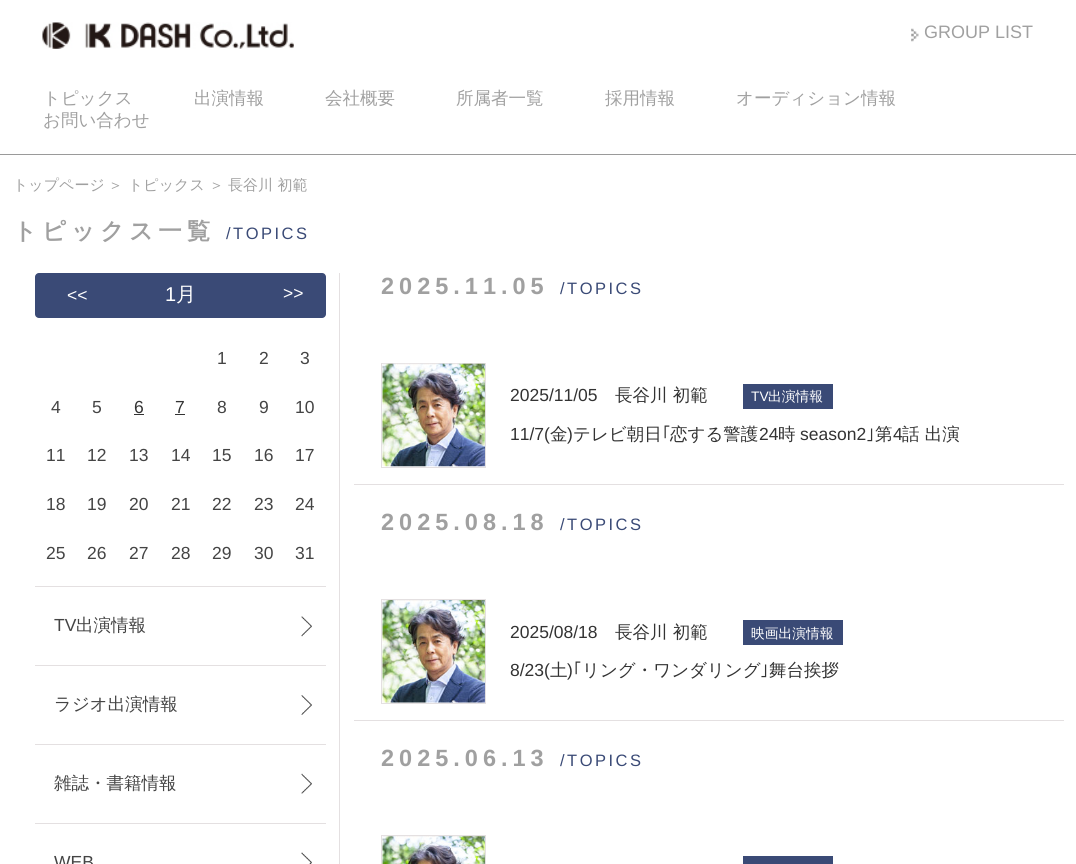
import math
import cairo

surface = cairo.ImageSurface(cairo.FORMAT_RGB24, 1076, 864)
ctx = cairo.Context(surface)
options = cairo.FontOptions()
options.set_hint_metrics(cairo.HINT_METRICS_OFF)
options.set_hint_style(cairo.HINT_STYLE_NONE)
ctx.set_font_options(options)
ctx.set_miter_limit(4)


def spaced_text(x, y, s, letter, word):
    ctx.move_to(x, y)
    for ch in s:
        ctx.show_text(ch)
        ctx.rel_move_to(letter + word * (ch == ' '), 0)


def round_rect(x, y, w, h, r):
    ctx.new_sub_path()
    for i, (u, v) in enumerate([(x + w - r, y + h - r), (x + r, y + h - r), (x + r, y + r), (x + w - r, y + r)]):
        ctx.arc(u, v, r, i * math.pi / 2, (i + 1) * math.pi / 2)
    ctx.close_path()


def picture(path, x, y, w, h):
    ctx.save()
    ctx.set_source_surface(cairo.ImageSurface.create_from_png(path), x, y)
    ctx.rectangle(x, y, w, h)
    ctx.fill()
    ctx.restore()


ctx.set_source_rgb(1, 1, 1)
ctx.paint()
picture("img1.png", 42, 22, 252, 27)
picture("img2.png", 911, 28, 8, 14)
ctx.select_font_face("Liberation Sans")
ctx.set_font_size(18)
ctx.set_source_rgb(0.627, 0.627, 0.627)
ctx.move_to(924, 38)
ctx.show_text("GROUP LIST")
ctx.select_font_face("WenQuanYi Zen Hei Medium")
ctx.set_font_size(17.5)
ctx.move_to(43, 104)
ctx.show_text("トピックス")
ctx.move_to(194, 104)
ctx.show_text("出演情報")
ctx.move_to(325, 104)
ctx.show_text("会社概要")
ctx.move_to(456, 104)
ctx.show_text("所属者一覧")
ctx.move_to(605, 104)
ctx.show_text("採用情報")
ctx.move_to(736, 104)
ctx.show_text("オーディション情報")
ctx.move_to(43, 126)
ctx.show_text("お問い合わせ")
ctx.set_source_rgb(0.604, 0.604, 0.604)
ctx.rectangle(0, 154, 1076, 1)
ctx.fill()
ctx.set_font_size(15)
ctx.set_source_rgb(0.627, 0.627, 0.627)
ctx.move_to(13, 190)
ctx.show_text("トップページ")
ctx.move_to(108, 190)
ctx.show_text("＞")
ctx.move_to(128, 190)
ctx.show_text("トピックス")
ctx.move_to(209, 190)
ctx.show_text("＞")
ctx.move_to(228, 190)
ctx.show_text("長谷川 初範")
ctx.select_font_face("WenQuanYi Zen Hei", cairo.FONT_SLANT_NORMAL, cairo.FONT_WEIGHT_BOLD)
ctx.set_font_size(23.5)
spaced_text(13, 239, "トピックス一覧", 5, 0)
ctx.select_font_face("Liberation Sans")
ctx.set_font_size(16.5)
ctx.set_source_rgb(0.227, 0.29, 0.463)
spaced_text(226, 239, "/TOPICS", 2.5, 0)
ctx.set_source_rgb(0.894, 0.878, 0.882)
ctx.rectangle(35, 586, 291, 1)
ctx.fill()
ctx.set_source_rgb(0.227, 0.29, 0.463)
round_rect(35, 273, 291, 45, 4)
ctx.fill()
ctx.set_font_size(17.5)
ctx.set_source_rgb(1, 1, 1)
ctx.move_to(67, 301)
ctx.show_text("<<")
ctx.set_font_size(20)
ctx.move_to(165, 301)
ctx.show_text("1")
ctx.select_font_face("WenQuanYi Zen Hei Medium")
ctx.move_to(176, 301)
ctx.show_text("月")
ctx.select_font_face("Liberation Sans")
ctx.set_font_size(17.5)
ctx.move_to(283, 299)
ctx.show_text(">>")
ctx.set_source_rgb(0.267, 0.267, 0.267)
ctx.move_to(217, 364)
ctx.show_text("1")
ctx.move_to(259, 364)
ctx.show_text("2")
ctx.move_to(300, 364)
ctx.show_text("3")
ctx.move_to(51, 413)
ctx.show_text("4")
ctx.move_to(92, 413)
ctx.show_text("5")
ctx.set_source_rgb(0.2, 0.2, 0.2)
ctx.move_to(134, 413)
ctx.show_text("6")
ctx.rectangle(134, 414, 10, 1)
ctx.fill()
ctx.move_to(175, 413)
ctx.show_text("7")
ctx.rectangle(175, 414, 10, 1)
ctx.fill()
ctx.set_source_rgb(0.267, 0.267, 0.267)
ctx.move_to(217, 413)
ctx.show_text("8")
ctx.move_to(259, 413)
ctx.show_text("9")
ctx.move_to(295, 413)
ctx.show_text("10")
ctx.move_to(46, 461)
ctx.show_text("11")
ctx.move_to(87, 461)
ctx.show_text("12")
ctx.move_to(129, 461)
ctx.show_text("13")
ctx.move_to(171, 461)
ctx.show_text("14")
ctx.move_to(212, 461)
ctx.show_text("15")
ctx.move_to(254, 461)
ctx.show_text("16")
ctx.move_to(295, 461)
ctx.show_text("17")
ctx.move_to(46, 510)
ctx.show_text("18")
ctx.move_to(87, 510)
ctx.show_text("19")
ctx.move_to(129, 510)
ctx.show_text("20")
ctx.move_to(171, 510)
ctx.show_text("21")
ctx.move_to(212, 510)
ctx.show_text("22")
ctx.move_to(254, 510)
ctx.show_text("23")
ctx.move_to(295, 510)
ctx.show_text("24")
ctx.move_to(46, 559)
ctx.show_text("25")
ctx.move_to(87, 559)
ctx.show_text("26")
ctx.move_to(129, 559)
ctx.show_text("27")
ctx.move_to(171, 559)
ctx.show_text("28")
ctx.move_to(212, 559)
ctx.show_text("29")
ctx.move_to(254, 559)
ctx.show_text("30")
ctx.move_to(295, 559)
ctx.show_text("31")
picture("img3.png", 301, 616, 11, 21)
ctx.set_source_rgb(0.894, 0.878, 0.882)
ctx.rectangle(35, 665, 291, 1)
ctx.fill()
ctx.set_source_rgb(0.267, 0.267, 0.267)
ctx.move_to(54, 631)
ctx.show_text("TV")
ctx.select_font_face("WenQuanYi Zen Hei Medium")
ctx.move_to(76, 631)
ctx.show_text("出演情報")
picture("img4.png", 301, 695, 11, 20)
ctx.set_source_rgb(0.894, 0.878, 0.882)
ctx.rectangle(35, 744, 291, 1)
ctx.fill()
ctx.set_source_rgb(0.267, 0.267, 0.267)
ctx.move_to(54, 710)
ctx.show_text("ラジオ出演情報")
picture("img5.png", 301, 773, 11, 21)
ctx.set_source_rgb(0.894, 0.878, 0.882)
ctx.rectangle(35, 823, 291, 1)
ctx.fill()
ctx.set_source_rgb(0.267, 0.267, 0.267)
ctx.move_to(54, 789)
ctx.show_text("雑誌・書籍情報")
picture("img6.png", 301, 852, 11, 12)
ctx.select_font_face("Liberation Sans")
ctx.move_to(54, 868)
ctx.show_text("WEB")
ctx.set_source_rgb(0.894, 0.878, 0.882)
ctx.rectangle(339, 273, 1, 591)
ctx.fill()
ctx.select_font_face("Liberation Sans", cairo.FONT_SLANT_NORMAL, cairo.FONT_WEIGHT_BOLD)
ctx.set_font_size(23.5)
ctx.set_source_rgb(0.627, 0.627, 0.627)
spaced_text(381, 294, "2025.11.05", 5, 0)
ctx.select_font_face("Liberation Sans")
ctx.set_font_size(16.5)
ctx.set_source_rgb(0.227, 0.29, 0.463)
spaced_text(560, 294, "/TOPICS", 2.5, 0)
ctx.set_source_rgb(0.894, 0.878, 0.882)
ctx.rectangle(354, 484, 710, 1)
ctx.fill()
ctx.rectangle(381.5, 363.5, 104, 104)
ctx.set_line_width(1)
ctx.stroke()
picture("img7.png", 382, 363, 103, 104)
ctx.set_font_size(17.5)
ctx.set_source_rgb(0.2, 0.2, 0.2)
ctx.move_to(510, 401)
ctx.show_text("2025/11/05")
ctx.select_font_face("WenQuanYi Zen Hei Medium")
ctx.move_to(615, 401)
ctx.show_text("長谷川 初範")
ctx.set_source_rgb(0.227, 0.29, 0.463)
ctx.rectangle(743, 384, 90, 25)
ctx.fill()
ctx.select_font_face("Liberation Sans")
ctx.set_font_size(13.75)
ctx.set_source_rgb(1, 1, 1)
ctx.move_to(751, 401)
ctx.show_text("TV")
ctx.select_font_face("WenQuanYi Zen Hei Medium")
ctx.move_to(768, 401)
ctx.show_text("出演情報")
ctx.select_font_face("Liberation Sans")
ctx.set_font_size(17.5)
ctx.set_source_rgb(0.2, 0.2, 0.2)
ctx.move_to(510, 440)
ctx.show_text("11/7(")
ctx.select_font_face("WenQuanYi Zen Hei Medium")
ctx.move_to(550, 440)
ctx.show_text("金")
ctx.select_font_face("Liberation Sans")
ctx.move_to(567, 440)
ctx.show_text(")")
ctx.select_font_face("WenQuanYi Zen Hei Medium")
ctx.move_to(573, 440)
ctx.show_text("テレビ朝日")
ctx.select_font_face("IPAPGothic")
ctx.move_to(662, 440)
ctx.show_text("｢")
ctx.select_font_face("WenQuanYi Zen Hei Medium")
ctx.move_to(670, 440)
ctx.show_text("恋する警護")
ctx.select_font_face("Liberation Sans")
ctx.move_to(759, 440)
ctx.show_text("24")
ctx.select_font_face("WenQuanYi Zen Hei Medium")
ctx.move_to(778, 440)
ctx.show_text("時")
ctx.select_font_face("Liberation Sans")
ctx.move_to(800, 440)
ctx.show_text("season2")
ctx.select_font_face("IPAPGothic")
ctx.move_to(866, 440)
ctx.show_text("｣")
ctx.select_font_face("WenQuanYi Zen Hei Medium")
ctx.move_to(875, 440)
ctx.show_text("第")
ctx.select_font_face("Liberation Sans")
ctx.move_to(893, 440)
ctx.show_text("4")
ctx.select_font_face("WenQuanYi Zen Hei Medium")
ctx.move_to(902, 440)
ctx.show_text("話 出演")
ctx.select_font_face("Liberation Sans", cairo.FONT_SLANT_NORMAL, cairo.FONT_WEIGHT_BOLD)
ctx.set_font_size(23.5)
ctx.set_source_rgb(0.627, 0.627, 0.627)
spaced_text(381, 530, "2025.08.18", 5, 0)
ctx.select_font_face("Liberation Sans")
ctx.set_font_size(16.5)
ctx.set_source_rgb(0.227, 0.29, 0.463)
spaced_text(560, 530, "/TOPICS", 2.5, 0)
ctx.set_source_rgb(0.894, 0.878, 0.882)
ctx.rectangle(354, 720, 710, 1)
ctx.fill()
ctx.rectangle(381.5, 599.5, 104, 104)
ctx.stroke()
picture("img8.png", 382, 600, 103, 103)
ctx.set_font_size(17.5)
ctx.set_source_rgb(0.2, 0.2, 0.2)
ctx.move_to(510, 638)
ctx.show_text("2025/08/18")
ctx.select_font_face("WenQuanYi Zen Hei Medium")
ctx.move_to(615, 638)
ctx.show_text("長谷川 初範")
ctx.set_source_rgb(0.227, 0.29, 0.463)
ctx.rectangle(743, 620, 100, 25)
ctx.fill()
ctx.set_font_size(13.75)
ctx.set_source_rgb(1, 1, 1)
ctx.move_to(751, 638)
ctx.show_text("映画出演情報")
ctx.select_font_face("Liberation Sans")
ctx.set_font_size(17.5)
ctx.set_source_rgb(0.2, 0.2, 0.2)
ctx.move_to(510, 676)
ctx.show_text("8/23(")
ctx.select_font_face("WenQuanYi Zen Hei Medium")
ctx.move_to(550, 676)
ctx.show_text("土")
ctx.select_font_face("Liberation Sans")
ctx.move_to(567, 676)
ctx.show_text(")")
ctx.select_font_face("IPAPGothic")
ctx.move_to(573, 676)
ctx.show_text("｢")
ctx.select_font_face("WenQuanYi Zen Hei Medium")
ctx.move_to(582, 676)
ctx.show_text("リング・ワンダリング")
ctx.select_font_face("IPAPGothic")
ctx.move_to(760, 676)
ctx.show_text("｣")
ctx.select_font_face("WenQuanYi Zen Hei Medium")
ctx.move_to(769, 676)
ctx.show_text("舞台挨拶")
ctx.select_font_face("Liberation Sans", cairo.FONT_SLANT_NORMAL, cairo.FONT_WEIGHT_BOLD)
ctx.set_font_size(23.5)
ctx.set_source_rgb(0.627, 0.627, 0.627)
spaced_text(381, 766, "2025.06.13", 5, 0)
ctx.select_font_face("Liberation Sans")
ctx.set_font_size(16.5)
ctx.set_source_rgb(0.227, 0.29, 0.463)
spaced_text(560, 766, "/TOPICS", 2.5, 0)
ctx.rectangle(381.5, 835.5, 104, 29)
ctx.set_source_rgb(0.894, 0.878, 0.882)
ctx.stroke()
picture("img9.png", 382, 836, 103, 28)
ctx.set_source_rgb(0.227, 0.29, 0.463)
ctx.rectangle(743, 856, 90, 8)
ctx.fill()
surface.write_to_png("page.png")
